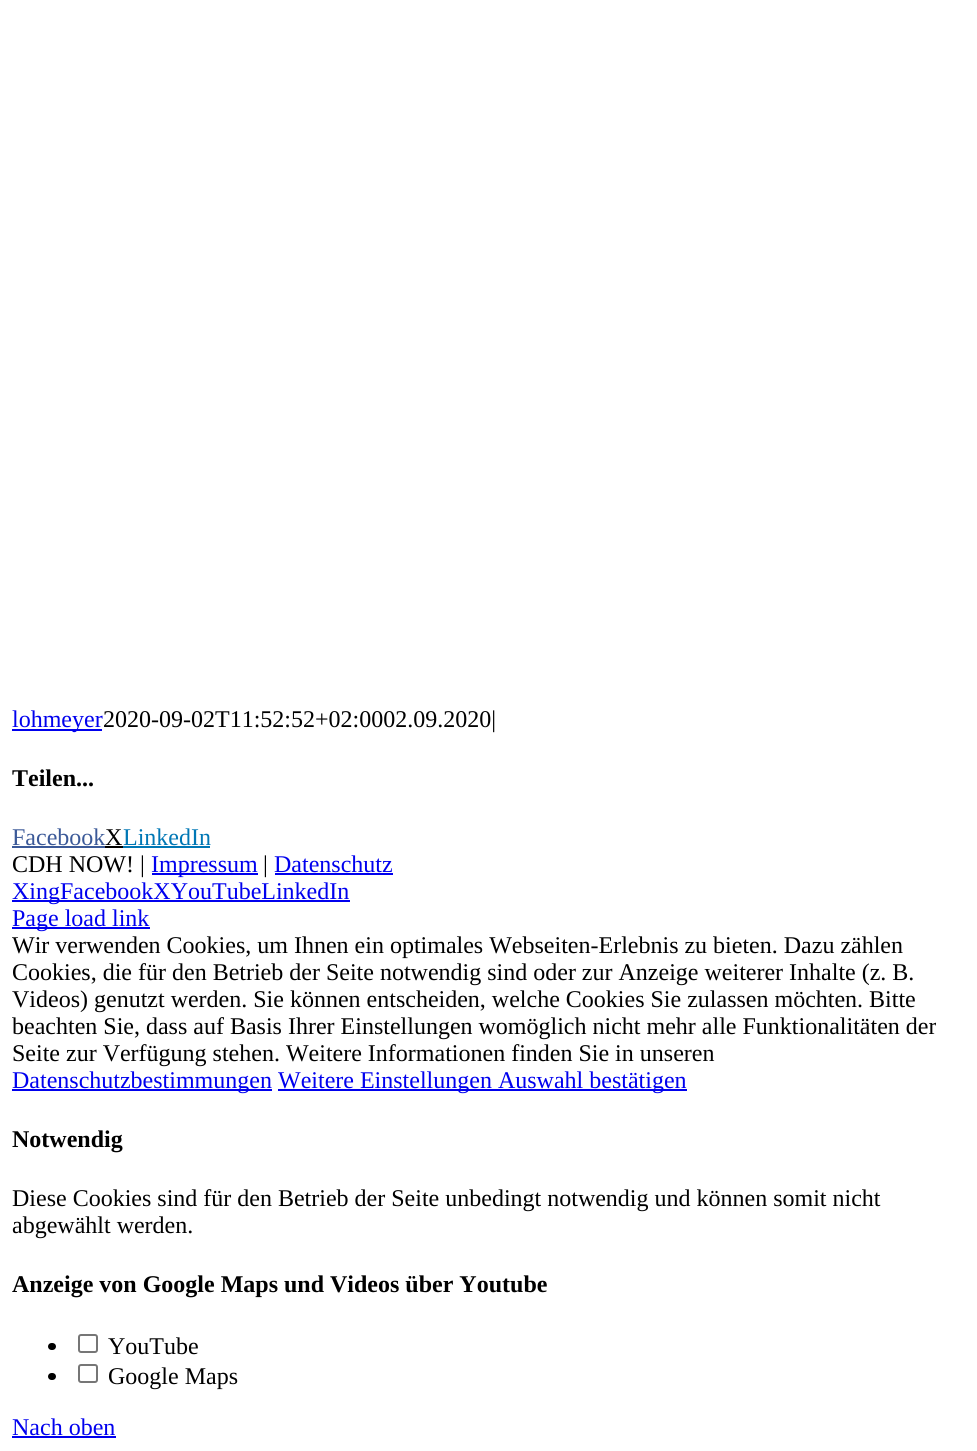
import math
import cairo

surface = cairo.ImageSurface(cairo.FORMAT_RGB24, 977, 1451)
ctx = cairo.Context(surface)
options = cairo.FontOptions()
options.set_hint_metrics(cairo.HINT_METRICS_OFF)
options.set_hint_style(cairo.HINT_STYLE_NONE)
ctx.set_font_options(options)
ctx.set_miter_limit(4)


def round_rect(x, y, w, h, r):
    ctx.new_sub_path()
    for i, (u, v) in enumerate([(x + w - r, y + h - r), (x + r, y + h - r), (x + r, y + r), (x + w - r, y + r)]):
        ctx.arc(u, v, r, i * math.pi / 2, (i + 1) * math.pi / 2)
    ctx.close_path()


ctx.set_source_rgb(1, 1, 1)
ctx.paint()
ctx.set_source_rgb(0, 0, 0.933)
ctx.rectangle(12, 729, 90, 2)
ctx.fill()
ctx.select_font_face("Liberation Serif")
ctx.set_font_size(24)
ctx.move_to(12, 727)
ctx.show_text("lohmeyer")
ctx.set_source_rgb(0, 0, 0)
ctx.move_to(103, 727)
ctx.show_text("2020-09-02T11:52:52+02:0002.09.2020|")
ctx.select_font_face("Liberation Serif", cairo.FONT_SLANT_NORMAL, cairo.FONT_WEIGHT_BOLD)
ctx.move_to(12, 786)
ctx.show_text("Teilen...")
ctx.select_font_face("Liberation Serif")
ctx.set_source_rgb(0.231, 0.349, 0.596)
ctx.move_to(12, 845)
ctx.show_text("Facebook")
ctx.rectangle(12, 846, 93, 2)
ctx.fill()
ctx.set_source_rgb(0, 0, 0)
ctx.move_to(105, 845)
ctx.show_text("X")
ctx.rectangle(105, 846, 18, 2)
ctx.fill()
ctx.set_source_rgb(0, 0.467, 0.71)
ctx.move_to(123, 845)
ctx.show_text("LinkedIn")
ctx.rectangle(123, 846, 87, 2)
ctx.fill()
ctx.set_source_rgb(0, 0, 0)
ctx.move_to(12, 872)
ctx.show_text("CDH NOW! |")
ctx.set_source_rgb(0, 0, 0.933)
ctx.rectangle(152, 873, 106, 2)
ctx.fill()
ctx.move_to(151, 872)
ctx.show_text("Impressum")
ctx.set_source_rgb(0, 0, 0)
ctx.move_to(263, 872)
ctx.show_text("|")
ctx.set_source_rgb(0, 0, 0.933)
ctx.move_to(274, 872)
ctx.show_text("Datenschutz")
ctx.rectangle(275, 873, 118, 2)
ctx.fill()
ctx.rectangle(12, 900, 141, 2)
ctx.fill()
ctx.move_to(12, 899)
ctx.show_text("XingFacebookXYouTubeLinkedIn")
ctx.rectangle(153, 900, 197, 2)
ctx.fill()
ctx.rectangle(12, 927, 138, 2)
ctx.fill()
ctx.move_to(12, 926)
ctx.show_text("Page load link")
ctx.set_source_rgb(0, 0, 0)
ctx.move_to(12, 953)
ctx.show_text("Wir verwenden Cookies, um Ihnen ein optimales Webseiten-Erlebnis zu bieten. Dazu zählen")
ctx.move_to(12, 980)
ctx.show_text("Cookies, die für den Betrieb der Seite notwendig sind oder zur Anzeige weiterer Inhalte (z. B.")
ctx.move_to(12, 1007)
ctx.show_text("Videos) genutzt werden. Sie können entscheiden, welche Cookies Sie zulassen möchten. Bitte")
ctx.move_to(12, 1034)
ctx.show_text("beachten Sie, dass auf Basis Ihrer Einstellungen womöglich nicht mehr alle Funktionalitäten der")
ctx.move_to(12, 1061)
ctx.show_text("Seite zur Verfügung stehen. Weitere Informationen finden Sie in unseren")
ctx.set_source_rgb(0, 0, 0.933)
ctx.rectangle(12, 1089, 260, 2)
ctx.fill()
ctx.move_to(12, 1088)
ctx.show_text("Datenschutzbestimmungen")
ctx.rectangle(278, 1089, 409, 2)
ctx.fill()
ctx.move_to(278, 1088)
ctx.show_text("Weitere Einstellungen Auswahl bestätigen")
ctx.select_font_face("Liberation Serif", cairo.FONT_SLANT_NORMAL, cairo.FONT_WEIGHT_BOLD)
ctx.set_source_rgb(0, 0, 0)
ctx.move_to(12, 1147)
ctx.show_text("Notwendig")
ctx.select_font_face("Liberation Serif")
ctx.move_to(12, 1206)
ctx.show_text("Diese Cookies sind für den Betrieb der Seite unbedingt notwendig und können somit nicht")
ctx.move_to(12, 1233)
ctx.show_text("abgewählt werden.")
ctx.select_font_face("Liberation Serif", cairo.FONT_SLANT_NORMAL, cairo.FONT_WEIGHT_BOLD)
ctx.move_to(12, 1292)
ctx.show_text("Anzeige von Google Maps und Videos über Youtube")
round_rect(48, 1343, 8, 7, 3.5)
ctx.fill()
round_rect(79, 1335, 18, 17, 2)
ctx.set_source_rgb(0.463, 0.463, 0.463)
ctx.stroke()
ctx.select_font_face("Liberation Serif")
ctx.set_source_rgb(0, 0, 0)
ctx.move_to(108, 1354)
ctx.show_text("YouTube")
round_rect(48, 1373, 8, 7, 3.5)
ctx.fill()
round_rect(79, 1365, 18, 17, 2)
ctx.set_source_rgb(0.463, 0.463, 0.463)
ctx.stroke()
ctx.set_source_rgb(0, 0, 0)
ctx.move_to(108, 1384)
ctx.show_text("Google Maps")
ctx.set_source_rgb(0, 0, 0.933)
ctx.move_to(12, 1435)
ctx.show_text("Nach oben")
ctx.rectangle(12, 1436, 104, 2)
ctx.fill()
surface.write_to_png("page.png")
